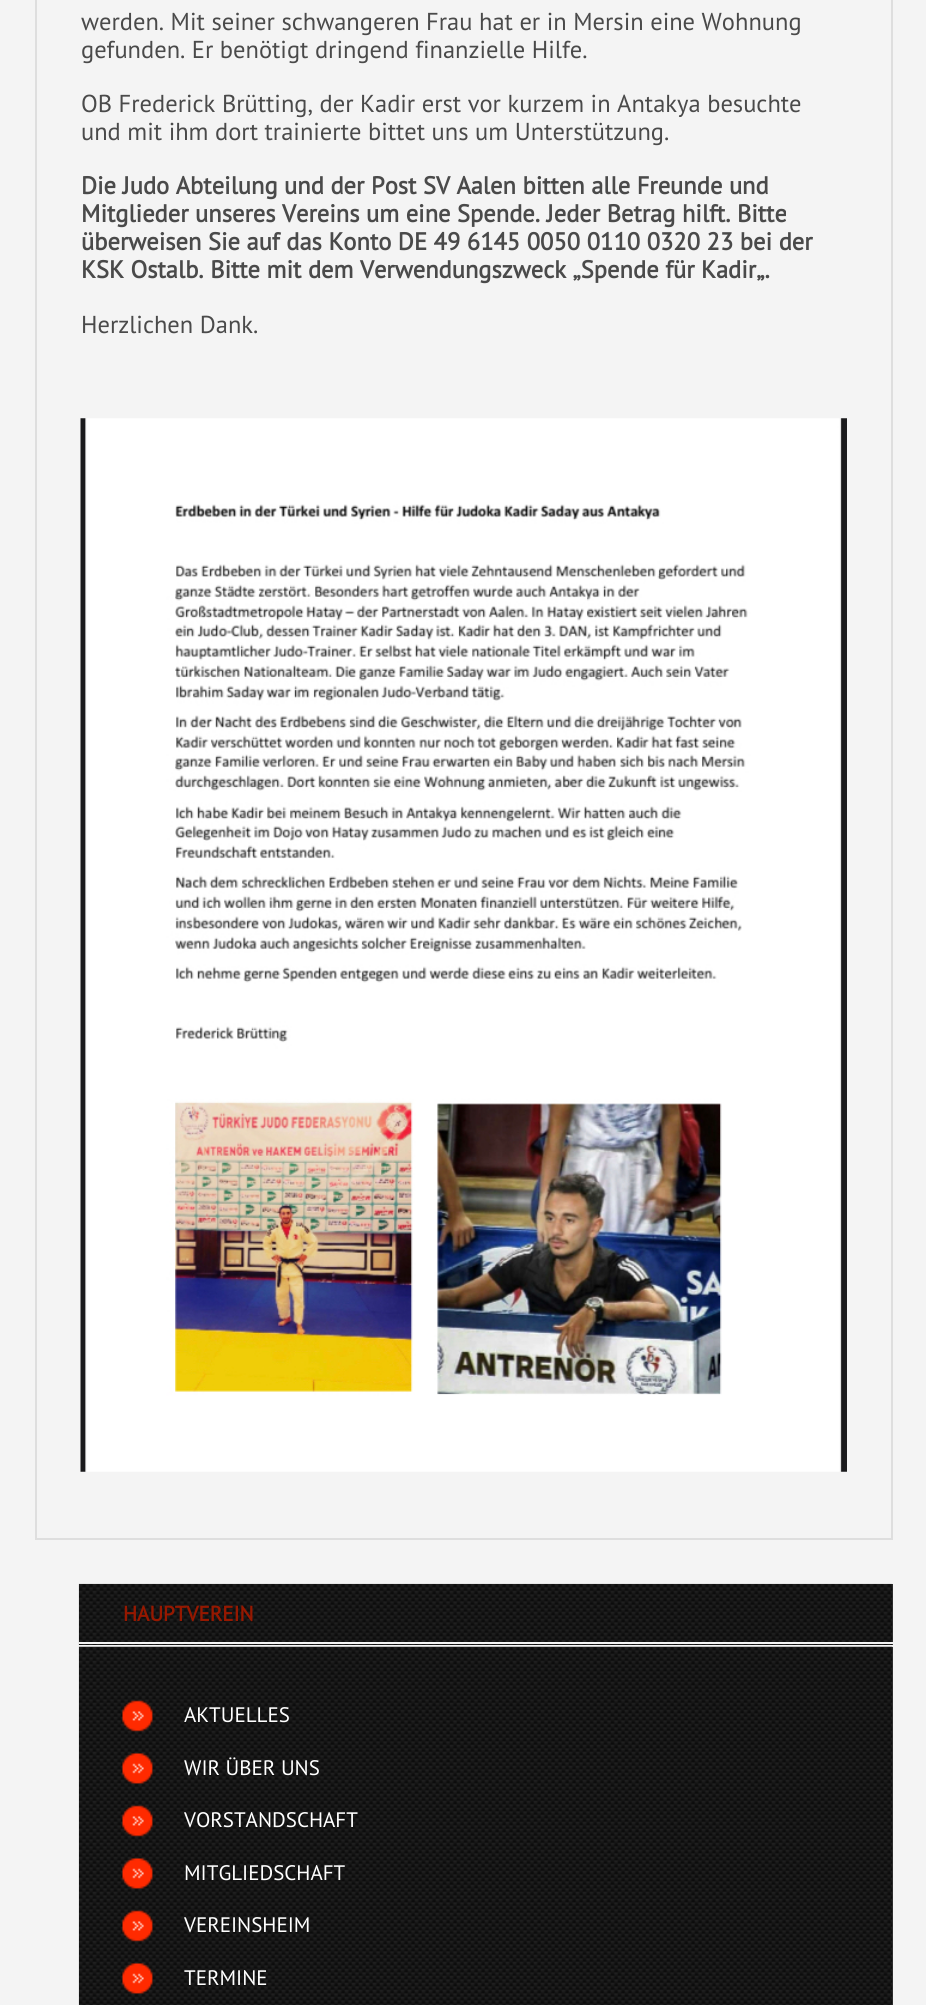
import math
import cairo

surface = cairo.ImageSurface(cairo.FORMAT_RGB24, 926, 2005)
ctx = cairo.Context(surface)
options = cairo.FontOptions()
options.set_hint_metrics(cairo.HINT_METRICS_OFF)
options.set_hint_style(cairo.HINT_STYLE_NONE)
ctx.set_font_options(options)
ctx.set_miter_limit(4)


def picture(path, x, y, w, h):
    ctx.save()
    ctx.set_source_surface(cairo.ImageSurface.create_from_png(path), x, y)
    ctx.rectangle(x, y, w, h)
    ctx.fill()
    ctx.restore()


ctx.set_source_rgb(0.957, 0.957, 0.957)
ctx.paint()
ctx.rectangle(36, -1, 856, 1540)
ctx.set_source_rgb(0.871, 0.871, 0.871)
ctx.stroke()
ctx.select_font_face("PT Sans")
ctx.set_font_size(24.5)
ctx.set_source_rgb(0.29, 0.29, 0.29)
ctx.move_to(81, 30)
ctx.show_text("werden. Mit seiner schwangeren Frau hat er in Mersin eine Wohnung")
ctx.move_to(81, 58)
ctx.show_text("gefunden. Er benötigt dringend finanzielle Hilfe.")
ctx.move_to(81, 112)
ctx.show_text("OB Frederick Brütting, der Kadir erst vor kurzem in Antakya besuchte")
ctx.move_to(81, 140)
ctx.show_text("und mit ihm dort trainierte bittet uns um Unterstützung.")
ctx.select_font_face("PT Sans", cairo.FONT_SLANT_NORMAL, cairo.FONT_WEIGHT_BOLD)
ctx.move_to(81, 194)
ctx.show_text("Die Judo Abteilung und der Post SV Aalen bitten alle Freunde und")
ctx.move_to(81, 222)
ctx.show_text("Mitglieder unseres Vereins um eine Spende. Jeder Betrag hilft. Bitte")
ctx.move_to(81, 250)
ctx.show_text("überweisen Sie auf das Konto DE 49 6145 0050 0110 0320 23 bei der")
ctx.move_to(81, 278)
ctx.show_text("KSK Ostalb. Bitte mit dem Verwendungszweck „Spende für Kadir„.")
ctx.select_font_face("PT Sans")
ctx.move_to(81, 333)
ctx.show_text("Herzlichen Dank.")
picture("img1.png", 80, 418, 767, 1054)
ctx.set_source_rgb(0.2, 0.2, 0.2)
ctx.rectangle(79, 1584, 814, 61)
ctx.fill()
picture("img2.png", 78, 1583, 815, 62)
ctx.set_source_rgb(0.957, 0.957, 0.957)
ctx.rectangle(79, 1642, 814, 2)
ctx.fill()
ctx.select_font_face("PT Sans", cairo.FONT_SLANT_NORMAL, cairo.FONT_WEIGHT_BOLD)
ctx.set_font_size(21)
ctx.set_source_rgb(0.588, 0.094, 0)
ctx.move_to(123, 1621)
ctx.show_text("HAUPTVEREIN")
ctx.set_source_rgb(0.2, 0.2, 0.2)
ctx.rectangle(79, 1647, 814, 358)
ctx.fill()
picture("img3.png", 78, 1646, 815, 359)
picture("img4.png", 122, 1700, 31, 32)
ctx.select_font_face("PT Sans")
ctx.set_source_rgb(1, 1, 1)
ctx.move_to(184, 1722)
ctx.show_text("AKTUELLES")
picture("img5.png", 122, 1753, 31, 31)
ctx.move_to(184, 1775)
ctx.show_text("WIR ÜBER UNS")
picture("img4.png", 122, 1805, 31, 32)
ctx.move_to(184, 1827)
ctx.show_text("VORSTANDSCHAFT")
picture("img5.png", 122, 1858, 31, 31)
ctx.move_to(184, 1880)
ctx.show_text("MITGLIEDSCHAFT")
picture("img4.png", 122, 1910, 31, 32)
ctx.move_to(184, 1932)
ctx.show_text("VEREINSHEIM")
picture("img5.png", 122, 1963, 31, 31)
ctx.move_to(184, 1985)
ctx.show_text("TERMINE")
surface.write_to_png("page.png")
